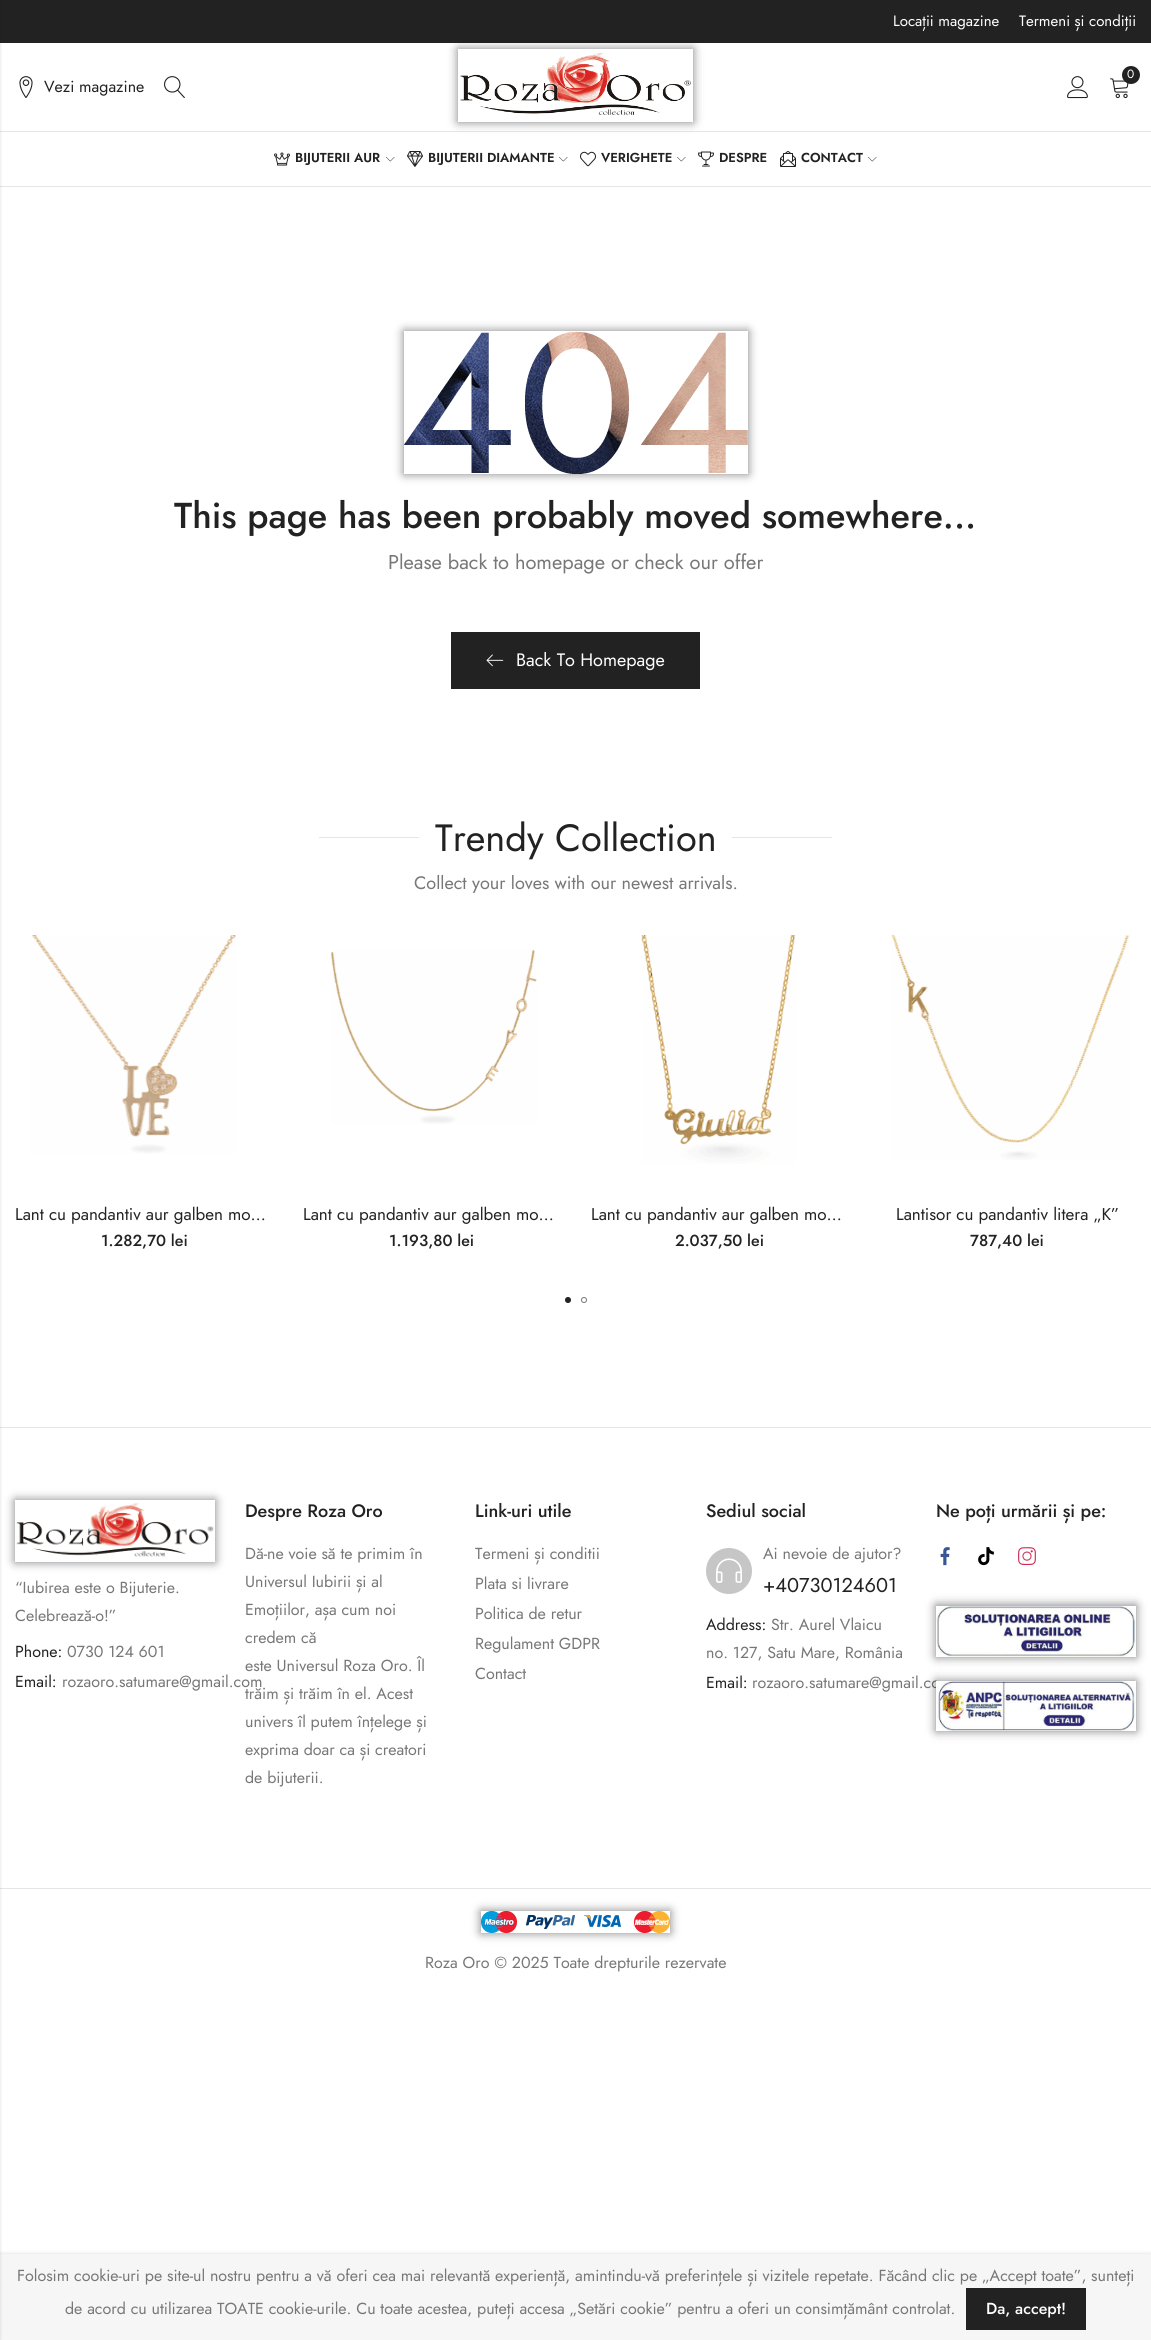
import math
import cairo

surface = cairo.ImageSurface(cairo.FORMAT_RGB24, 1151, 2340)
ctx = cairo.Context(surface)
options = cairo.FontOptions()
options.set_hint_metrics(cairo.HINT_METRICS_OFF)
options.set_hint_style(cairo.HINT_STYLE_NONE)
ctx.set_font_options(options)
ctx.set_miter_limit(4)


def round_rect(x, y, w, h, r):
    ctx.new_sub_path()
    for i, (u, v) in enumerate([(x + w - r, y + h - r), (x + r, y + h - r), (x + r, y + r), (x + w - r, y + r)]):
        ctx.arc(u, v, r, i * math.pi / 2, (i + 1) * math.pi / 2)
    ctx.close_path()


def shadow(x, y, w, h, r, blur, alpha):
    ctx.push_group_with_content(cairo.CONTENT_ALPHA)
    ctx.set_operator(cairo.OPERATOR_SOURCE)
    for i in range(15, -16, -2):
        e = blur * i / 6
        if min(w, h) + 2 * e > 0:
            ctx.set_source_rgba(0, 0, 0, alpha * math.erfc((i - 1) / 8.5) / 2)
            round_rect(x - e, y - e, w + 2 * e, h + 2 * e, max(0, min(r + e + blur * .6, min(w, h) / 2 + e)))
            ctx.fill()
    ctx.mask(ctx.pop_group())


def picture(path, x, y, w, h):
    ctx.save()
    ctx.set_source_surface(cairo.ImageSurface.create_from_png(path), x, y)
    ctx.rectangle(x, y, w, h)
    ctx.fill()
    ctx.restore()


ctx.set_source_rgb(1, 1, 1)
ctx.paint()
ctx.set_source_rgb(0.133, 0.133, 0.133)
ctx.rectangle(0, 0, 1151, 43)
ctx.fill()
ctx.set_source_rgb(0.898, 0.898, 0.898)
ctx.rectangle(0, 131, 1151, 1)
ctx.fill()
ctx.rectangle(0, 186, 1151, 1)
ctx.fill()
ctx.rectangle(0, 1427, 1151, 1)
ctx.fill()
ctx.rectangle(0, 1888, 1151, 1)
ctx.fill()
ctx.set_source_rgb(0, 0, 0)
shadow(0, 2254, 1151, 86, 0, 2, 0.15)
ctx.set_source_rgb(0.961, 0.961, 0.961)
ctx.rectangle(0, 2254, 1151, 86)
ctx.fill()
ctx.set_source_rgb(0, 0, 0)
shadow(-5, 0, 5, 2340, 0, 1.5, 0.15)
ctx.select_font_face("Jost")
ctx.set_font_size(15)
ctx.set_source_rgb(1, 1, 1)
ctx.move_to(893, 26)
ctx.show_text("Locații magazine")
ctx.move_to(1019, 26)
ctx.show_text("Termeni și condiții")
ctx.save()
ctx.set_fill_rule(cairo.FILL_RULE_EVEN_ODD)
ctx.new_path()
ctx.move_to(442, 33)
ctx.line_to(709, 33)
ctx.line_to(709, 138)
ctx.line_to(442, 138)
ctx.close_path()
ctx.move_to(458, 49)
ctx.line_to(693, 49)
ctx.line_to(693, 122)
ctx.line_to(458, 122)
ctx.close_path()
ctx.clip()
ctx.set_source_rgb(0, 0, 0)
shadow(458, 49, 235, 73, 0, 5, 0.5)
ctx.restore()
picture("img1.png", 460, 53, 231, 62)
picture("img2.png", 1110, 78, 19, 21)
ctx.set_source_rgb(0.133, 0.133, 0.133)
ctx.arc(1131, 75, 9, 0, 2 * math.pi)
ctx.fill()
ctx.set_font_size(12)
ctx.set_source_rgb(1, 1, 1)
ctx.move_to(1127, 78)
ctx.show_text("0")
picture("img3.png", 1067, 76, 21, 23)
picture("img4.png", 19, 76, 14, 22)
ctx.set_font_size(16)
ctx.set_source_rgb(0.133, 0.133, 0.133)
ctx.move_to(44, 92)
ctx.show_text("Vezi magazine")
picture("img5.png", 164, 76, 21, 23)
picture("img6.png", 274, 152, 16, 14)
ctx.select_font_face("Jost SemiBold")
ctx.set_font_size(13)
ctx.move_to(295, 162)
ctx.show_text("BIJUTERII AUR")
picture("img7.png", 386, 157, 9, 5)
picture("img8.png", 407, 151, 16, 16)
ctx.move_to(428, 162)
ctx.show_text("BIJUTERII DIAMANTE")
picture("img7.png", 559, 157, 9, 5)
picture("img9.png", 580, 151, 16, 16)
ctx.move_to(601, 162)
ctx.show_text("VERIGHETE")
picture("img7.png", 677, 157, 9, 5)
picture("img10.png", 698, 151, 16, 16)
ctx.move_to(719, 162)
ctx.show_text("DESPRE")
picture("img11.png", 780, 151, 16, 16)
ctx.move_to(801, 162)
ctx.show_text("CONTACT")
picture("img7.png", 868, 157, 9, 5)
ctx.save()
ctx.set_fill_rule(cairo.FILL_RULE_EVEN_ODD)
ctx.new_path()
ctx.move_to(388, 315)
ctx.line_to(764, 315)
ctx.line_to(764, 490)
ctx.line_to(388, 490)
ctx.close_path()
ctx.move_to(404, 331)
ctx.line_to(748, 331)
ctx.line_to(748, 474)
ctx.line_to(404, 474)
ctx.close_path()
ctx.clip()
ctx.set_source_rgb(0, 0, 0)
shadow(404, 331, 344, 143, 0, 5, 0.5)
ctx.restore()
picture("img12.png", 404, 331, 344, 143)
ctx.select_font_face("Jost Medium")
ctx.set_font_size(36)
ctx.move_to(174, 528)
ctx.show_text("This page has been probably moved somewhere...")
ctx.select_font_face("Jost")
ctx.set_font_size(20)
ctx.set_source_rgb(0.467, 0.467, 0.467)
ctx.move_to(388, 569)
ctx.show_text("Please back to homepage or check our offer")
ctx.set_source_rgb(0.133, 0.133, 0.133)
ctx.rectangle(451, 632, 249, 57)
ctx.fill()
picture("img13.png", 486, 654, 18, 13)
ctx.set_font_size(18)
ctx.set_source_rgb(1, 1, 1)
ctx.move_to(516, 666)
ctx.show_text("Back To Homepage")
ctx.set_source_rgb(0.898, 0.898, 0.898)
ctx.rectangle(319, 837, 100, 1)
ctx.fill()
ctx.set_font_size(38)
ctx.set_source_rgb(0.133, 0.133, 0.133)
ctx.move_to(435, 851)
ctx.show_text("Trendy Collection")
ctx.set_source_rgb(0.898, 0.898, 0.898)
ctx.rectangle(732, 837, 100, 1)
ctx.fill()
ctx.set_font_size(18)
ctx.set_source_rgb(0.467, 0.467, 0.467)
ctx.move_to(414, 889)
ctx.show_text("Collect your loves with our newest arrivals.")
picture("img14.png", 31, 935, 205, 219)
ctx.set_font_size(17)
ctx.set_source_rgb(0.133, 0.133, 0.133)
ctx.move_to(15, 1220)
ctx.show_text("Lant cu pandantiv aur galben mo…")
ctx.select_font_face("Jost Medium")
ctx.set_font_size(16)
ctx.move_to(101, 1246)
ctx.show_text("1.282,70 lei")
picture("img15.png", 331, 950, 206, 174)
ctx.select_font_face("Jost")
ctx.set_font_size(17)
ctx.move_to(303, 1220)
ctx.show_text("Lant cu pandantiv aur galben mo…")
ctx.select_font_face("Jost Medium")
ctx.set_font_size(16)
ctx.move_to(389, 1246)
ctx.show_text("1.193,80 lei")
picture("img16.png", 641, 935, 155, 229)
ctx.select_font_face("Jost")
ctx.set_font_size(17)
ctx.move_to(591, 1220)
ctx.show_text("Lant cu pandantiv aur galben mo…")
ctx.select_font_face("Jost Medium")
ctx.set_font_size(16)
ctx.move_to(675, 1246)
ctx.show_text("2.037,50 lei")
picture("img17.png", 891, 935, 239, 225)
ctx.select_font_face("Jost")
ctx.set_font_size(17)
ctx.move_to(896, 1220)
ctx.show_text("Lantisor cu pandantiv litera „K”")
ctx.select_font_face("Jost Medium")
ctx.set_font_size(16)
ctx.move_to(970, 1246)
ctx.show_text("787,40 lei")
ctx.new_path()
ctx.arc(568, 1300, 2.5, 0, 2 * math.pi)
ctx.fill_preserve()
ctx.set_line_width(1)
ctx.stroke()
ctx.arc(584, 1300, 2.5, 0, 2 * math.pi)
ctx.set_source_rgb(0.467, 0.467, 0.467)
ctx.stroke()
ctx.save()
ctx.set_fill_rule(cairo.FILL_RULE_EVEN_ODD)
ctx.new_path()
ctx.move_to(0, 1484)
ctx.line_to(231, 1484)
ctx.line_to(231, 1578)
ctx.line_to(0, 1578)
ctx.close_path()
ctx.move_to(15, 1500)
ctx.line_to(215, 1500)
ctx.line_to(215, 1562)
ctx.line_to(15, 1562)
ctx.close_path()
ctx.clip()
ctx.set_source_rgb(0, 0, 0)
shadow(15, 1500, 200, 62, 0, 5, 0.5)
ctx.restore()
picture("img18.png", 16, 1502, 198, 55)
ctx.select_font_face("Jost")
ctx.move_to(15, 1593)
ctx.show_text("“Iubirea este o Bijuterie.")
ctx.move_to(15, 1621)
ctx.show_text("Celebrează-o!”")
ctx.set_source_rgb(0.133, 0.133, 0.133)
ctx.move_to(15, 1657)
ctx.show_text("Phone:")
ctx.set_source_rgb(0.467, 0.467, 0.467)
ctx.move_to(67, 1657)
ctx.show_text("0730 124 601")
ctx.set_source_rgb(0.133, 0.133, 0.133)
ctx.move_to(15, 1687)
ctx.show_text("Email:")
ctx.set_source_rgb(0.467, 0.467, 0.467)
ctx.move_to(62, 1687)
ctx.show_text("rozaoro.satumare@gmail.com")
ctx.select_font_face("Jost Medium")
ctx.set_font_size(18)
ctx.set_source_rgb(0.133, 0.133, 0.133)
ctx.move_to(245, 1517)
ctx.show_text("Despre Roza Oro")
ctx.select_font_face("Jost")
ctx.set_font_size(16)
ctx.set_source_rgb(0.467, 0.467, 0.467)
ctx.move_to(245, 1559)
ctx.show_text("Dă-ne voie să te primim în")
ctx.move_to(245, 1587)
ctx.show_text("Universul Iubirii și al")
ctx.move_to(245, 1615)
ctx.show_text("Emoțiilor, așa cum noi")
ctx.move_to(245, 1643)
ctx.show_text("credem că")
ctx.move_to(245, 1671)
ctx.show_text("este Universul Roza Oro. Îl")
ctx.move_to(245, 1699)
ctx.show_text("trăim și trăim în el. Acest")
ctx.move_to(245, 1727)
ctx.show_text("univers îl putem înțelege și")
ctx.move_to(245, 1755)
ctx.show_text("exprima doar ca și creatori")
ctx.move_to(245, 1783)
ctx.show_text("de bijuterii.")
ctx.select_font_face("Jost Medium")
ctx.set_font_size(18)
ctx.set_source_rgb(0.133, 0.133, 0.133)
ctx.move_to(475, 1517)
ctx.show_text("Link-uri utile")
ctx.select_font_face("Jost")
ctx.set_font_size(16)
ctx.set_source_rgb(0.467, 0.467, 0.467)
ctx.move_to(475, 1559)
ctx.show_text("Termeni și conditii")
ctx.move_to(475, 1589)
ctx.show_text("Plata si livrare")
ctx.move_to(475, 1619)
ctx.show_text("Politica de retur")
ctx.move_to(475, 1649)
ctx.show_text("Regulament GDPR")
ctx.move_to(475, 1679)
ctx.show_text("Contact")
ctx.select_font_face("Jost Medium")
ctx.set_font_size(18)
ctx.set_source_rgb(0.133, 0.133, 0.133)
ctx.move_to(706, 1517)
ctx.show_text("Sediul social")
ctx.set_source_rgb(0.776, 0.776, 0.776)
ctx.new_path()
ctx.arc(729, 1571, 23, 0, 2 * math.pi)
ctx.fill()
picture("img19.png", 716, 1558, 26, 25)
ctx.select_font_face("Jost")
ctx.set_font_size(16)
ctx.set_source_rgb(0.467, 0.467, 0.467)
ctx.move_to(763, 1559)
ctx.show_text("Ai nevoie de ajutor?")
ctx.set_font_size(20)
ctx.set_source_rgb(0.133, 0.133, 0.133)
ctx.move_to(763, 1592)
ctx.show_text("+40730124601")
ctx.set_font_size(16)
ctx.move_to(706, 1630)
ctx.show_text("Address:")
ctx.set_source_rgb(0.467, 0.467, 0.467)
ctx.move_to(771, 1630)
ctx.show_text("Str. Aurel Vlaicu")
ctx.move_to(706, 1658)
ctx.show_text("no. 127, Satu Mare, România")
ctx.set_source_rgb(0.133, 0.133, 0.133)
ctx.move_to(706, 1688)
ctx.show_text("Email:")
ctx.set_source_rgb(0.467, 0.467, 0.467)
ctx.move_to(752, 1688)
ctx.show_text("rozaoro.satumare@gmail.co")
ctx.select_font_face("Jost Medium")
ctx.set_font_size(18)
ctx.set_source_rgb(0.133, 0.133, 0.133)
ctx.move_to(936, 1517)
ctx.show_text("Ne poți urmării și pe:")
picture("img20.png", 940, 1547, 10, 19)
picture("img21.png", 978, 1547, 16, 19)
picture("img22.png", 1018, 1547, 18, 18)
ctx.set_source_rgb(0, 0, 0)
shadow(936, 1605, 200, 52, 0, 5, 0.5)
picture("img23.png", 936, 1606, 200, 51)
shadow(936, 1681, 200, 50, 0, 5, 0.5)
picture("img24.png", 936, 1681, 200, 50)
ctx.save()
ctx.set_fill_rule(cairo.FILL_RULE_EVEN_ODD)
ctx.new_path()
ctx.move_to(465, 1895)
ctx.line_to(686, 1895)
ctx.line_to(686, 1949)
ctx.line_to(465, 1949)
ctx.close_path()
ctx.move_to(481, 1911)
ctx.line_to(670, 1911)
ctx.line_to(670, 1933)
ctx.line_to(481, 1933)
ctx.close_path()
ctx.clip()
shadow(481, 1911, 189, 22, 0, 5, 0.5)
ctx.restore()
picture("img25.png", 481, 1911, 189, 22)
ctx.select_font_face("Jost")
ctx.set_font_size(16)
ctx.set_source_rgb(0.467, 0.467, 0.467)
ctx.move_to(425, 1968)
ctx.show_text("Roza Oro © 2025 Toate drepturile rezervate")
ctx.move_to(17, 2281)
ctx.show_text("Folosim cookie-uri pe site-ul nostru pentru a vă oferi cea mai relevantă experiență, amintindu-vă preferințele și vizitele repetate. Făcând clic pe „Accept toate”, sunteți")
ctx.move_to(65, 2314)
ctx.show_text("de acord cu utilizarea TOATE cookie-urile. Cu toate acestea, puteți accesa „Setări cookie” pentru a oferi un consimțământ controlat.")
ctx.set_source_rgb(0.133, 0.133, 0.133)
ctx.rectangle(966, 2288, 120, 42)
ctx.fill()
ctx.select_font_face("Jost Medium")
ctx.set_source_rgb(1, 1, 1)
ctx.move_to(986, 2314)
ctx.show_text("Da, accept!")
surface.write_to_png("page.png")
